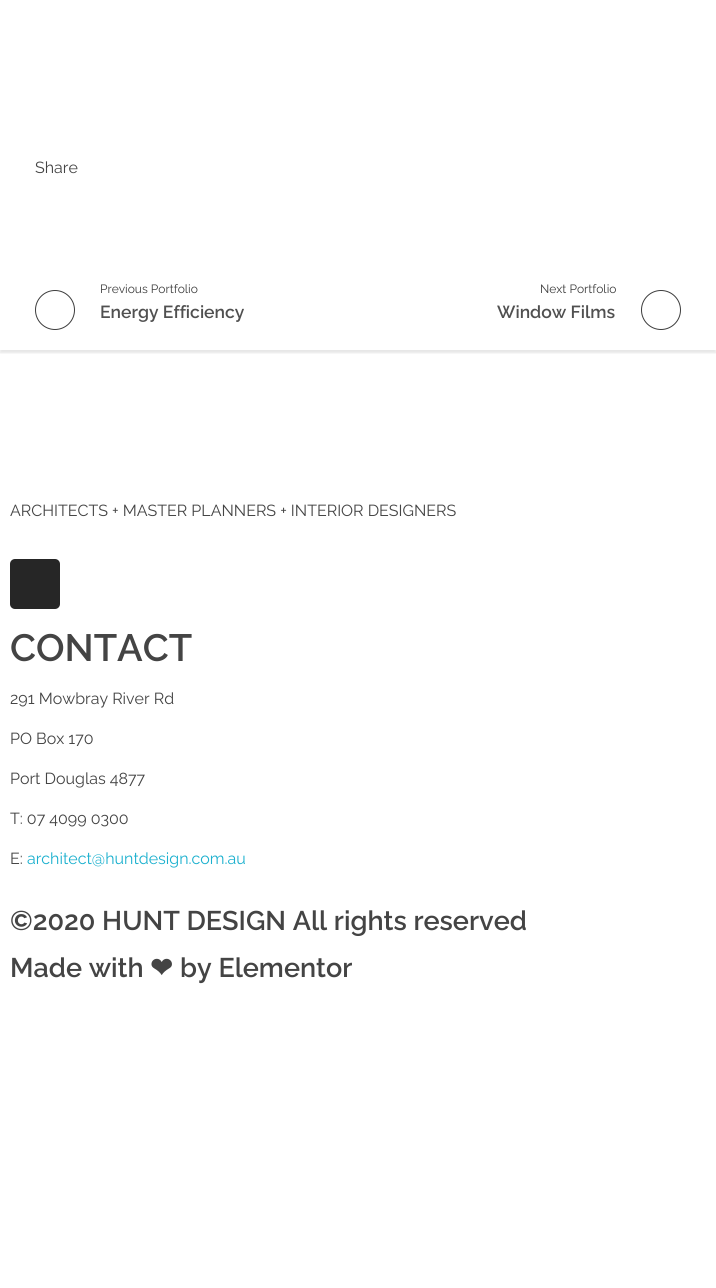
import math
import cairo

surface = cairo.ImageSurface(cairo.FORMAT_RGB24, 716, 1288)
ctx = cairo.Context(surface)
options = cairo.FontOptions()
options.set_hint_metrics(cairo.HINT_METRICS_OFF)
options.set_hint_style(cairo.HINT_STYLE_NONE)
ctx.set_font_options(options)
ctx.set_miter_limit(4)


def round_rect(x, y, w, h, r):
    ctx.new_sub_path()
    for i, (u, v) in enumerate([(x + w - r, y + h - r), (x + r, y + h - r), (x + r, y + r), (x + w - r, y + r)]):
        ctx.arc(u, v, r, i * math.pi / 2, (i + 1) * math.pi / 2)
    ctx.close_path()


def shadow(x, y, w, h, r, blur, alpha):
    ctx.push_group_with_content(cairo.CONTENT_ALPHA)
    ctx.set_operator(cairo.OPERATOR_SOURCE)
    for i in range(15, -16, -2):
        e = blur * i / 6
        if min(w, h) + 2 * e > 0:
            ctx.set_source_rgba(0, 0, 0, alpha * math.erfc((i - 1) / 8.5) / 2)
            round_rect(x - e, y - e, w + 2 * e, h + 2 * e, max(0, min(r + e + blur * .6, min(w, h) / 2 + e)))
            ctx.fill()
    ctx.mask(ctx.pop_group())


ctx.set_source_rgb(1, 1, 1)
ctx.paint()
ctx.save()
ctx.rectangle(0, 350, 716, 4)
ctx.clip()
ctx.set_source_rgb(0.039, 0.039, 0.039)
shadow(0, 3, 716, 350, 0, 1, 0.1)
ctx.restore()
ctx.select_font_face("Raleway")
ctx.set_font_size(16)
ctx.set_source_rgb(0.267, 0.267, 0.267)
ctx.move_to(35, 173)
ctx.show_text("Share")
ctx.set_font_size(12)
ctx.set_source_rgb(0.239, 0.239, 0.239)
ctx.move_to(100, 293)
ctx.show_text("Previous Portfolio")
ctx.new_path()
ctx.arc(55, 310, 19.5, 0, 2 * math.pi)
ctx.set_line_width(1)
ctx.stroke()
ctx.select_font_face("Raleway SemiBold")
ctx.set_font_size(17.5)
ctx.set_source_rgb(0.314, 0.314, 0.314)
ctx.move_to(100, 318)
ctx.show_text("Energy Efficiency")
ctx.select_font_face("Raleway")
ctx.set_font_size(12)
ctx.set_source_rgb(0.239, 0.239, 0.239)
ctx.move_to(540, 293)
ctx.show_text("Next Portfolio")
ctx.select_font_face("Raleway SemiBold")
ctx.set_font_size(17.5)
ctx.set_source_rgb(0.314, 0.314, 0.314)
ctx.move_to(497, 318)
ctx.show_text("Window Films")
ctx.new_path()
ctx.arc(661, 310, 19.5, 0, 2 * math.pi)
ctx.set_source_rgb(0.239, 0.239, 0.239)
ctx.stroke()
ctx.select_font_face("Raleway")
ctx.set_font_size(16)
ctx.set_source_rgb(0.267, 0.267, 0.267)
ctx.move_to(10, 516)
ctx.show_text("ARCHITECTS + MASTER PLANNERS + INTERIOR DESIGNERS")
ctx.set_source_rgb(0.149, 0.149, 0.149)
round_rect(10, 559, 50, 50, 5)
ctx.fill()
ctx.select_font_face("Raleway SemiBold")
ctx.set_font_size(38)
ctx.set_source_rgb(0.267, 0.267, 0.267)
ctx.move_to(10, 661)
ctx.show_text("CONTACT")
ctx.select_font_face("Raleway")
ctx.set_font_size(16)
ctx.move_to(10, 704)
ctx.show_text("291 Mowbray River Rd")
ctx.move_to(10, 744)
ctx.show_text("PO Box 170")
ctx.move_to(10, 784)
ctx.show_text("Port Douglas 4877")
ctx.move_to(10, 824)
ctx.show_text("T: 07 4099 0300")
ctx.move_to(10, 864)
ctx.show_text("E:")
ctx.set_source_rgb(0.106, 0.69, 0.808)
ctx.move_to(27, 864)
ctx.show_text("architect@huntdesign.com.au")
ctx.select_font_face("Raleway SemiBold")
ctx.set_font_size(27)
ctx.set_source_rgb(0.267, 0.267, 0.267)
ctx.move_to(10, 930)
ctx.show_text("©2020 HUNT DESIGN All rights reserved")
ctx.move_to(10, 977)
ctx.show_text("Made with")
ctx.select_font_face("DejaVu Sans", cairo.FONT_SLANT_NORMAL, cairo.FONT_WEIGHT_BOLD)
ctx.move_to(150, 977)
ctx.show_text("❤")
ctx.select_font_face("Raleway SemiBold")
ctx.move_to(180, 977)
ctx.show_text("by Elementor")
surface.write_to_png("page.png")
